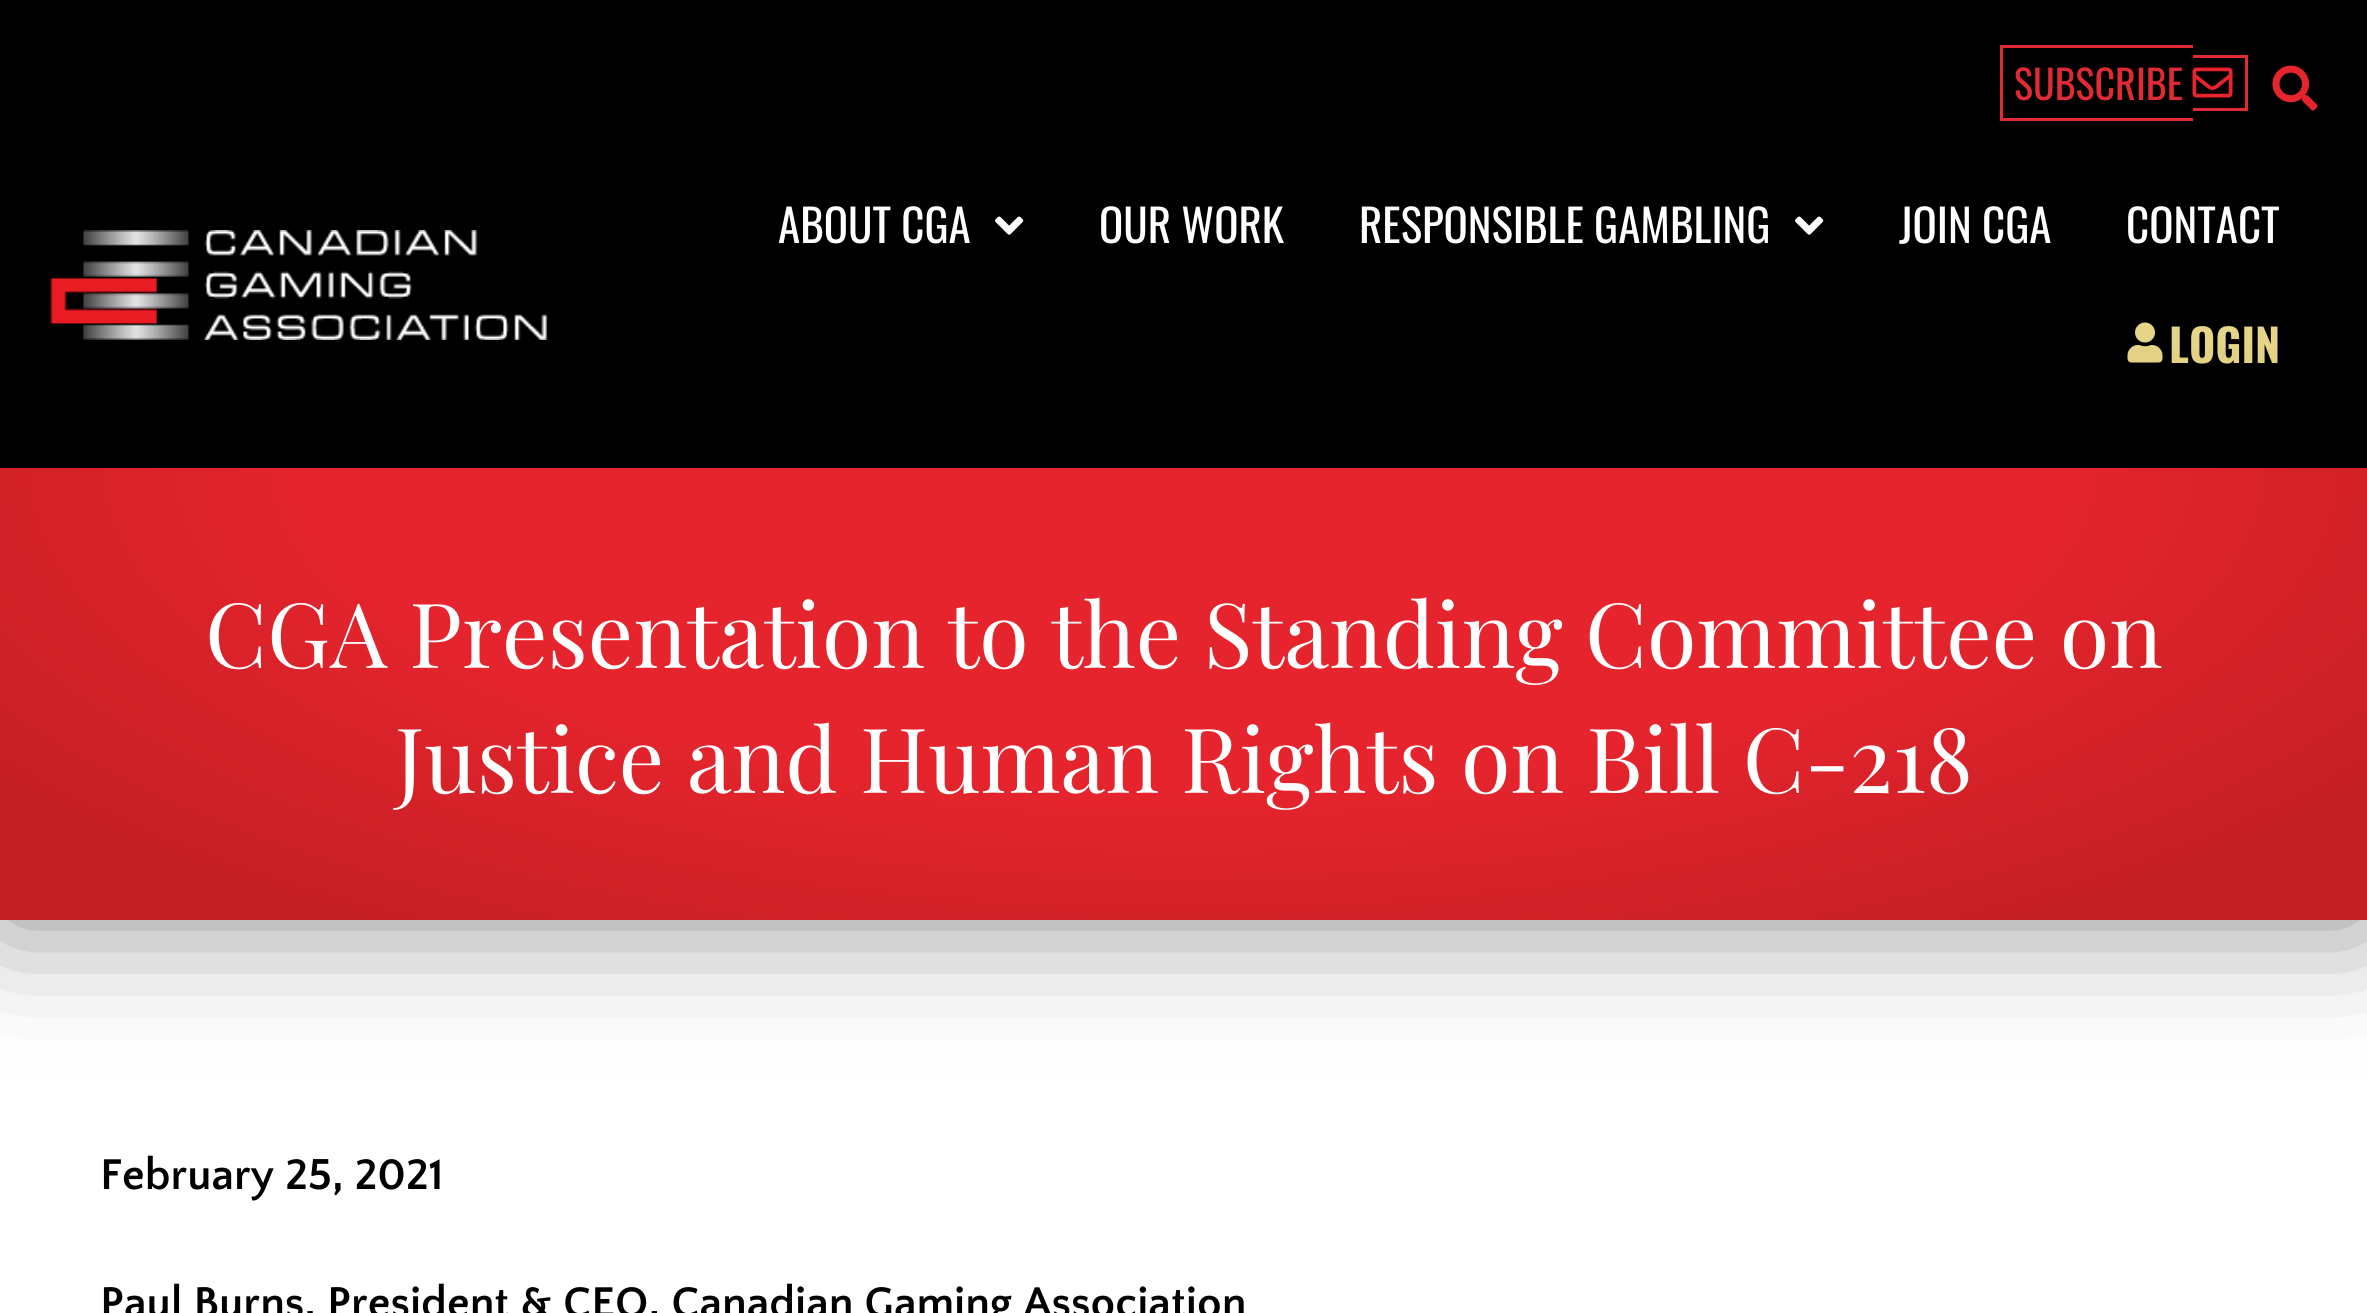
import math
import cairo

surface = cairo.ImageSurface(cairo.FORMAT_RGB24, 2367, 1313)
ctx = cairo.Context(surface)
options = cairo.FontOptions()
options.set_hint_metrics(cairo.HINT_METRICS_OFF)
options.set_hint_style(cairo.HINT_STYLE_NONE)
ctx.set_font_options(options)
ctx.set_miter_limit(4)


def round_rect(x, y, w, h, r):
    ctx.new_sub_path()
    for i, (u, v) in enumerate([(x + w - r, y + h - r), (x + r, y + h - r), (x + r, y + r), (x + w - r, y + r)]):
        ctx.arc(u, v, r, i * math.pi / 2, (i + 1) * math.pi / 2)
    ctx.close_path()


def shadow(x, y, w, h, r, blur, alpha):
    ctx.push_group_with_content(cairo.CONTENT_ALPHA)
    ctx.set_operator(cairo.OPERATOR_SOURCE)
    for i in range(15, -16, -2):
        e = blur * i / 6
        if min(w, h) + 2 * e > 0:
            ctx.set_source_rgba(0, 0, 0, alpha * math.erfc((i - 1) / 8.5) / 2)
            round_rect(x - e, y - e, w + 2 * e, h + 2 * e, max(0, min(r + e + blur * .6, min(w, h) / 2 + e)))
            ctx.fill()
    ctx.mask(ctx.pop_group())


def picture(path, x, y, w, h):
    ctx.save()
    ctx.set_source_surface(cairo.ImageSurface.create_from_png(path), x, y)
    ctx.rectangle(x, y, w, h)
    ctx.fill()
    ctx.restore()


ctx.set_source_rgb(0, 0, 0)
ctx.paint()
ctx.select_font_face("Oswald")
ctx.set_font_size(40)
ctx.set_source_rgb(0.878, 0.165, 0.204)
ctx.move_to(2014, 100)
ctx.show_text("SUBSCRIBE")
ctx.rectangle(2000, 45, 193, 3)
ctx.fill()
ctx.rectangle(2000, 118, 193, 3)
ctx.fill()
ctx.rectangle(2000, 45, 3, 75)
ctx.fill()
ctx.rectangle(2193, 55, 55, 3)
ctx.fill()
ctx.rectangle(2245, 55, 3, 55)
ctx.fill()
ctx.rectangle(2193, 108, 55, 3)
ctx.fill()
picture("img1.png", 2192, 67, 41, 31)
picture("img2.png", 2272, 65, 46, 46)
picture("img3.png", 50, 230, 498, 110)
ctx.set_font_size(45)
ctx.set_source_rgb(1, 1, 1)
ctx.move_to(778, 243)
ctx.show_text("ABOUT CGA")
picture("img4.png", 995, 216, 29, 19)
ctx.move_to(1099, 243)
ctx.show_text("OUR WORK")
ctx.move_to(1359, 243)
ctx.show_text("RESPONSIBLE GAMBLING")
picture("img4.png", 1795, 216, 29, 19)
ctx.move_to(1899, 243)
ctx.show_text("JOIN CGA")
ctx.move_to(2126, 243)
ctx.show_text("CONTACT")
picture("img5.png", 2127, 322, 36, 41)
ctx.select_font_face("Oswald", cairo.FONT_SLANT_NORMAL, cairo.FONT_WEIGHT_BOLD)
ctx.set_source_rgb(0.91, 0.839, 0.537)
ctx.move_to(2169, 363)
ctx.show_text("LOGIN")
ctx.set_source_rgb(1, 1, 1)
ctx.rectangle(0, 920, 2367, 393)
ctx.fill()
ctx.set_source_rgb(0, 0, 0)
shadow(0, 468, 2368, 452, 0, 65, 0.48)
gradient = cairo.RadialGradient(0, 0, 0, 0, 0, 1)
gradient.set_matrix(cairo.Matrix(1 / 1674, 0, 0, 1 / 640, -1 * 1184 / 1674, -1 * 468 / 640))
gradient.add_color_stop_rgba(0.51, 0.898, 0.141, 0.176, 1)
gradient.add_color_stop_rgba(0.86, 0.769, 0.122, 0.141, 1)
ctx.set_source(gradient)
ctx.rectangle(0, 468, 2367, 452)
ctx.fill()
ctx.select_font_face("Playfair Display")
ctx.set_font_size(90)
ctx.set_source_rgb(1, 1, 1)
ctx.move_to(205, 668)
ctx.show_text("CGA Presentation to the Standing Committee on")
ctx.move_to(395, 793)
ctx.show_text("Justice and Human Rights on Bill C-218")
ctx.select_font_face("Quattrocento Sans", cairo.FONT_SLANT_NORMAL, cairo.FONT_WEIGHT_BOLD)
ctx.set_font_size(45)
ctx.set_source_rgb(0, 0, 0)
ctx.move_to(100, 1189)
ctx.show_text("February 25, 2021")
ctx.move_to(100, 1317)
ctx.show_text("Paul Burns, President & CEO, Canadian Gaming Association")
surface.write_to_png("page.png")
